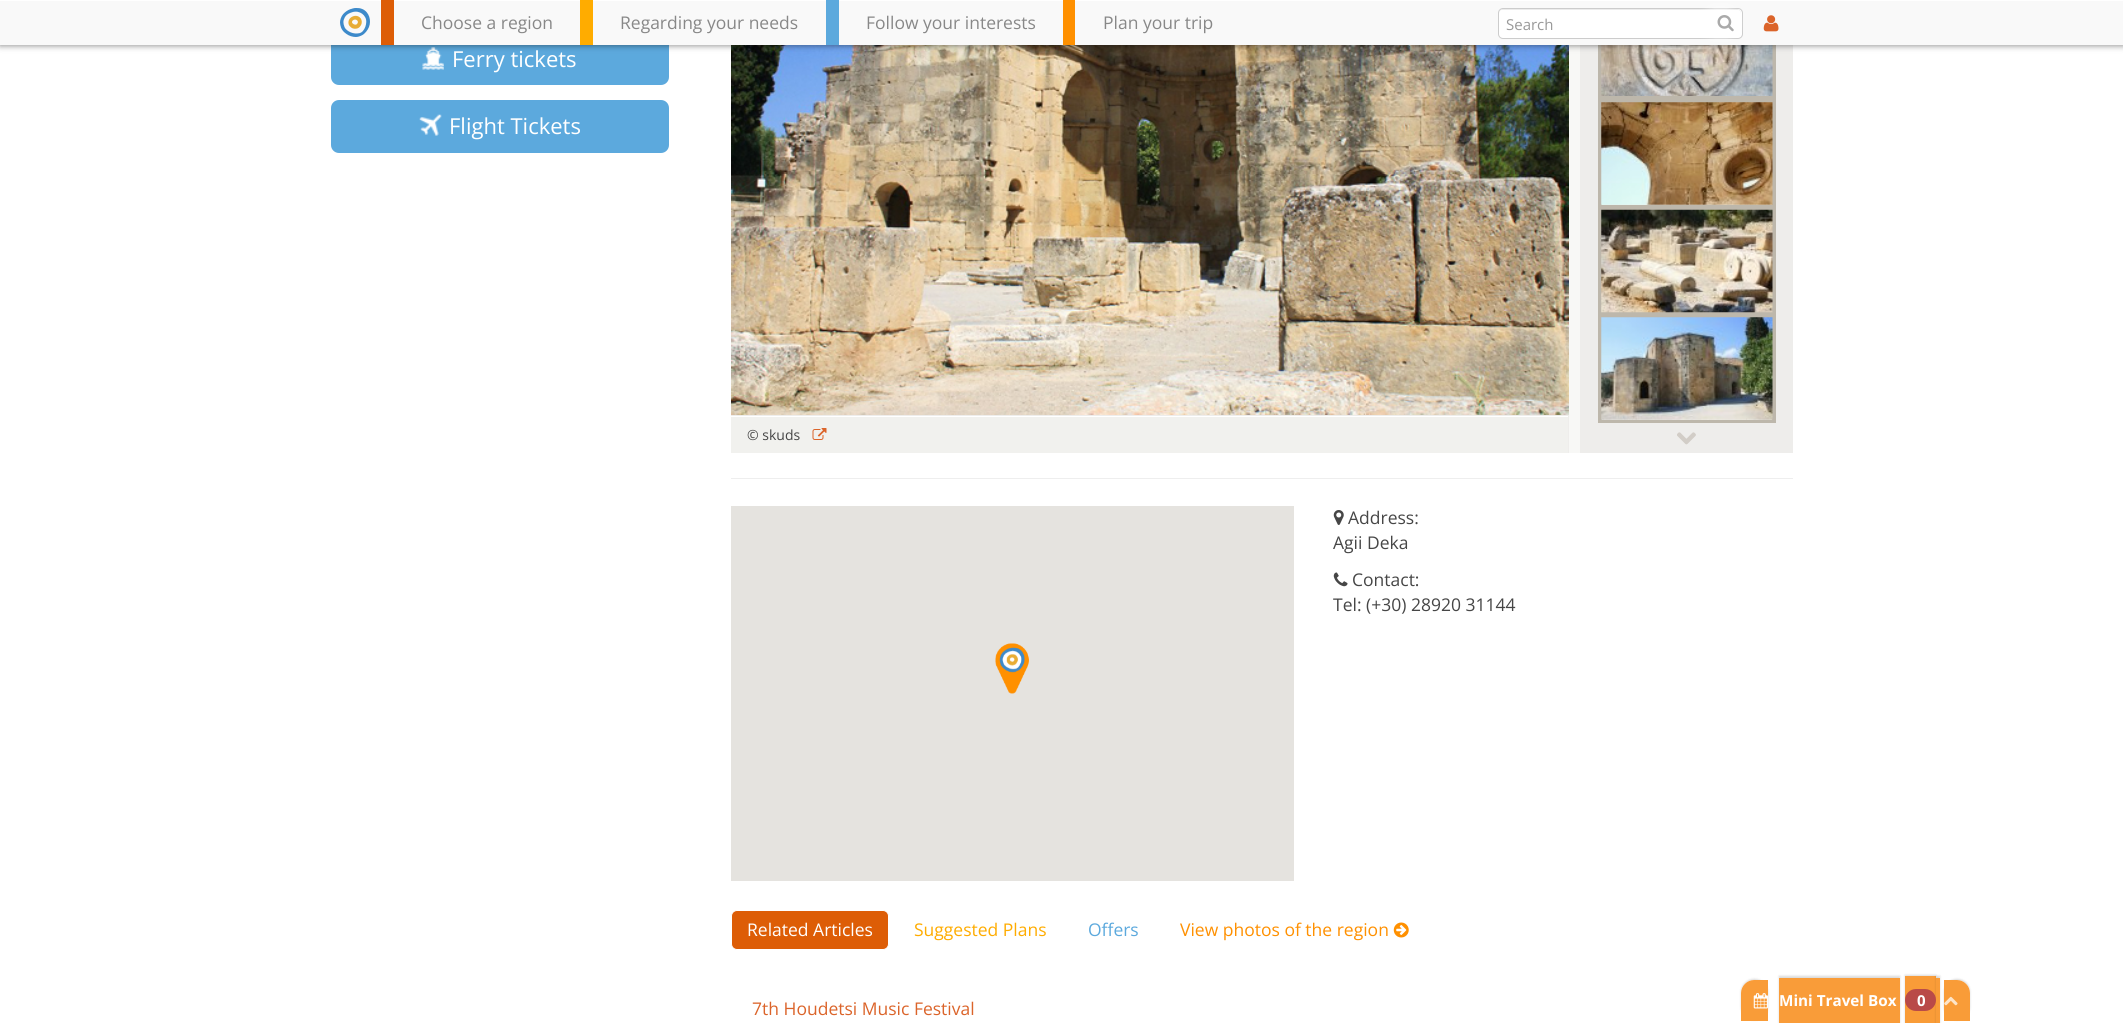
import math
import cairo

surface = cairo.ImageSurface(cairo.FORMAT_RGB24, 2123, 1023)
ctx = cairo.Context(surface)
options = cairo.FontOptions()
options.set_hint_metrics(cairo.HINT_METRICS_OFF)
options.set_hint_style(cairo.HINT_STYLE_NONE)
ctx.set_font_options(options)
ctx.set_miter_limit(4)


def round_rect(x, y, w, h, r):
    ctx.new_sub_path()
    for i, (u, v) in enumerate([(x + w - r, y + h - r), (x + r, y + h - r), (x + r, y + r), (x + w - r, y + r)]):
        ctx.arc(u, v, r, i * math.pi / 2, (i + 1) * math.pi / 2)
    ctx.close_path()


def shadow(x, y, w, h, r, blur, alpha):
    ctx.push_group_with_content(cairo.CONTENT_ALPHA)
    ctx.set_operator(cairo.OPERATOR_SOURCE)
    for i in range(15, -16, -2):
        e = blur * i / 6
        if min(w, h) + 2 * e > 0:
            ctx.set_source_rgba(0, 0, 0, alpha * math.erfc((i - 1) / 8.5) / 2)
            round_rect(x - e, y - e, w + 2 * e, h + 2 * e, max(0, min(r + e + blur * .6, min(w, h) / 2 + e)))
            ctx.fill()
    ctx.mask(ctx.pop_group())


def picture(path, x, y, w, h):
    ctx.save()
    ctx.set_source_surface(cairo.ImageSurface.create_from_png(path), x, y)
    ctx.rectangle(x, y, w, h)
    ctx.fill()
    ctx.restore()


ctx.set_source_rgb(1, 1, 1)
ctx.paint()
ctx.set_source_rgb(0.361, 0.663, 0.867)
round_rect(331, 33, 338, 52, 8)
ctx.fill()
picture("img4.png", 422, 47, 22, 23)
ctx.set_source_rgb(0.969, 0.969, 0.961)
ctx.rectangle(1569, 45, 11, 408)
ctx.fill()
picture("img6.png", 731, 45, 838, 370)
ctx.set_source_rgb(0.933, 0.929, 0.918)
ctx.rectangle(1580, 45, 213, 408)
ctx.fill()
ctx.rectangle(1600, -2, 174, 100)
ctx.set_source_rgb(0.741, 0.718, 0.671)
ctx.set_line_width(4)
ctx.stroke()
picture("img8.png", 1601, 45, 172, 51)
ctx.set_source_rgb(0, 0, 0)
shadow(0, 1, 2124, 45, 0, 3, 0.41)
ctx.set_source_rgb(0.976, 0.976, 0.976)
ctx.rectangle(0, 1, 2123, 44)
ctx.fill()
ctx.set_source_rgb(1, 1, 1)
ctx.rectangle(0, 0, 2123, 1)
ctx.fill()
picture("img1.png", 340, 8, 30, 29)
ctx.set_source_rgb(0.867, 0.365, 0.024)
ctx.rectangle(381, 0, 13, 45)
ctx.fill()
ctx.select_font_face("Open Sans")
ctx.set_font_size(17.5)
ctx.set_source_rgb(0.533, 0.533, 0.533)
ctx.move_to(421, 29)
ctx.show_text("Choose a region")
ctx.set_source_rgb(1, 0.675, 0)
ctx.rectangle(580, 0, 13, 45)
ctx.fill()
ctx.set_source_rgb(0.533, 0.533, 0.533)
ctx.move_to(620, 29)
ctx.show_text("Regarding your needs")
ctx.set_source_rgb(0.361, 0.663, 0.867)
ctx.rectangle(826, 0, 13, 45)
ctx.fill()
ctx.set_source_rgb(0.533, 0.533, 0.533)
ctx.move_to(866, 29)
ctx.show_text("Follow your interests")
ctx.set_source_rgb(1, 0.565, 0)
ctx.rectangle(1063, 0, 12, 45)
ctx.fill()
ctx.set_source_rgb(0.533, 0.533, 0.533)
ctx.move_to(1103, 29)
ctx.show_text("Plan your trip")
ctx.set_source_rgb(1, 1, 1)
round_rect(1498, 8, 245, 31, 5)
ctx.fill()
ctx.set_source_rgb(0.925, 0.925, 0.925)
ctx.new_path()
ctx.move_to(1502, 10)
ctx.line_to(1738, 10)
ctx.curve_to(1740, 10, 1741, 12, 1741, 14)
ctx.line_to(1741, 13)
ctx.curve_to(1741, 11, 1739, 9, 1737, 9)
ctx.line_to(1503, 9)
ctx.curve_to(1501, 9, 1499, 11, 1499, 13)
ctx.line_to(1499, 14)
ctx.curve_to(1499, 12, 1500, 10, 1502, 10)
ctx.close_path()
ctx.fill()
round_rect(1498.5, 8.5, 244, 30, 4.5)
ctx.set_source_rgb(0.8, 0.8, 0.8)
ctx.set_line_width(1)
ctx.stroke()
ctx.set_font_size(15)
ctx.set_source_rgb(0.6, 0.6, 0.6)
ctx.move_to(1506, 30)
ctx.show_text("Search")
ctx.save()
ctx.set_fill_rule(cairo.FILL_RULE_EVEN_ODD)
ctx.new_path()
ctx.move_to(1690, 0)
ctx.line_to(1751, 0)
ctx.line_to(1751, 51)
ctx.line_to(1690, 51)
ctx.close_path()
ctx.move_to(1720, 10)
ctx.line_to(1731, 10)
ctx.curve_to(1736, 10, 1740, 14, 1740, 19)
ctx.line_to(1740, 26)
ctx.curve_to(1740, 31, 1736, 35, 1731, 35)
ctx.line_to(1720, 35)
ctx.curve_to(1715, 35, 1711, 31, 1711, 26)
ctx.line_to(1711, 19)
ctx.curve_to(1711, 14, 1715, 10, 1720, 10)
ctx.close_path()
ctx.clip()
ctx.set_source_rgb(1, 1, 1)
shadow(1706, 10, 29, 25, 9, 5, 1)
ctx.restore()
picture("img2.png", 1717, 15, 17, 17)
picture("img3.png", 1763, 15, 16, 17)
ctx.set_font_size(22)
ctx.set_source_rgb(1, 1, 1)
ctx.move_to(452, 67)
ctx.show_text("Ferry tickets")
ctx.set_source_rgb(0.361, 0.663, 0.867)
round_rect(331, 100, 338, 53, 8)
ctx.fill()
picture("img5.png", 419, 114, 23, 22)
ctx.set_source_rgb(1, 1, 1)
ctx.move_to(449, 134)
ctx.show_text("Flight Tickets")
ctx.set_source_rgb(0.933, 0.929, 0.918)
ctx.rectangle(731, 415, 838, 38)
ctx.fill()
ctx.set_source_rgb(0.945, 0.945, 0.933)
ctx.rectangle(731, 417, 837, 36)
ctx.fill()
ctx.set_source_rgb(1, 1, 1)
ctx.rectangle(731, 416, 837, 1)
ctx.fill()
ctx.set_font_size(14)
ctx.set_source_rgb(0.275, 0.275, 0.275)
ctx.move_to(747, 440)
ctx.show_text("© skuds")
picture("img7.png", 812, 428, 15, 12)
ctx.rectangle(1600, 101, 174, 106)
ctx.set_source_rgb(0.741, 0.718, 0.671)
ctx.set_line_width(4)
ctx.stroke()
picture("img9.png", 1601, 102, 172, 103)
ctx.rectangle(1600, 208, 174, 106)
ctx.stroke()
picture("img10.png", 1601, 209, 172, 104)
ctx.save()
ctx.rectangle(1580, 0, 213, 423)
ctx.clip()
ctx.rectangle(1600, 316, 174, 106)
ctx.stroke()
ctx.restore()
picture("img11.png", 1601, 317, 172, 103)
picture("img12.png", 1677, 432, 19, 13)
ctx.set_source_rgb(0.933, 0.933, 0.933)
ctx.rectangle(731, 478, 1062, 1)
ctx.fill()
ctx.set_source_rgb(0.898, 0.89, 0.875)
ctx.rectangle(731, 506, 563, 375)
ctx.fill()
picture("img13.png", 995, 643, 34, 51)
picture("img14.png", 1333, 510, 11, 15)
ctx.set_font_size(17.5)
ctx.set_source_rgb(0.275, 0.275, 0.275)
ctx.move_to(1348, 524)
ctx.show_text("Address:")
ctx.move_to(1333, 549)
ctx.show_text("Agii Deka")
picture("img15.png", 1333, 572, 15, 15)
ctx.move_to(1352, 586)
ctx.show_text("Contact:")
ctx.move_to(1333, 611)
ctx.show_text("Tel: (+30) 28920 31144")
ctx.set_source_rgb(0.867, 0.365, 0.024)
round_rect(731.5, 910.5, 157, 39, 5.5)
ctx.fill_preserve()
ctx.set_source_rgb(1, 1, 1)
ctx.set_line_width(1)
ctx.stroke()
ctx.move_to(747, 936)
ctx.show_text("Related Articles")
ctx.set_source_rgb(1, 0.675, 0)
ctx.move_to(914, 936)
ctx.show_text("Suggested Plans")
ctx.set_source_rgb(0.361, 0.663, 0.867)
ctx.move_to(1088, 936)
ctx.show_text("Offers")
ctx.set_source_rgb(1, 0.565, 0)
ctx.move_to(1180, 936)
ctx.show_text("View photos of the region")
picture("img16.png", 1393, 922, 16, 16)
ctx.set_source_rgb(0.859, 0.392, 0.165)
ctx.move_to(752, 1015)
ctx.show_text("7th Houdetsi Music Festival")
ctx.save()
ctx.set_fill_rule(cairo.FILL_RULE_EVEN_ODD)
ctx.new_path()
ctx.move_to(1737, 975)
ctx.line_to(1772, 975)
ctx.line_to(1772, 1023)
ctx.line_to(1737, 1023)
ctx.close_path()
ctx.move_to(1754, 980)
ctx.line_to(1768, 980)
ctx.line_to(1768, 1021)
ctx.line_to(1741, 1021)
ctx.line_to(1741, 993)
ctx.curve_to(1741, 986, 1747, 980, 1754, 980)
ctx.close_path()
ctx.clip()
ctx.set_source_rgb(0, 0, 0)
shadow(1741, 979, 27, 41, 13, 1, 0.15)
ctx.restore()
ctx.set_source_rgba(0.973, 0.604, 0.204, 0.98)
ctx.new_path()
ctx.move_to(1754, 980)
ctx.line_to(1768, 980)
ctx.line_to(1768, 1021)
ctx.line_to(1741, 1021)
ctx.line_to(1741, 993)
ctx.curve_to(1741, 986, 1747, 980, 1754, 980)
ctx.close_path()
ctx.fill()
ctx.set_source_rgb(0, 0, 0)
shadow(1779, 976, 121, 47, 0, 1, 0.15)
ctx.set_source_rgb(0.973, 0.612, 0.224)
ctx.rectangle(1779, 978, 121, 45)
ctx.fill()
ctx.save()
ctx.set_fill_rule(cairo.FILL_RULE_EVEN_ODD)
ctx.new_path()
ctx.move_to(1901, 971)
ctx.line_to(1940, 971)
ctx.line_to(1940, 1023)
ctx.line_to(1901, 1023)
ctx.close_path()
ctx.move_to(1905, 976)
ctx.line_to(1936, 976)
ctx.line_to(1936, 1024)
ctx.line_to(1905, 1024)
ctx.close_path()
ctx.clip()
ctx.set_source_rgb(0, 0, 0)
shadow(1905, 975, 31, 48, 0, 1, 0.15)
ctx.restore()
ctx.set_source_rgba(0.973, 0.604, 0.204, 0.98)
ctx.rectangle(1905, 976, 31, 47)
ctx.fill()
ctx.save()
ctx.set_fill_rule(cairo.FILL_RULE_EVEN_ODD)
ctx.new_path()
ctx.move_to(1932, 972)
ctx.line_to(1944, 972)
ctx.line_to(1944, 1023)
ctx.line_to(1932, 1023)
ctx.close_path()
ctx.move_to(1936, 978)
ctx.line_to(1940, 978)
ctx.line_to(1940, 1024)
ctx.line_to(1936, 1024)
ctx.close_path()
ctx.clip()
ctx.set_source_rgb(0, 0, 0)
shadow(1936, 976, 4, 47, 0, 1, 0.15)
ctx.restore()
ctx.rectangle(1936, 978, 4, 45)
ctx.fill()
ctx.save()
ctx.set_fill_rule(cairo.FILL_RULE_EVEN_ODD)
ctx.new_path()
ctx.move_to(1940, 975)
ctx.line_to(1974, 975)
ctx.line_to(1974, 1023)
ctx.line_to(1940, 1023)
ctx.close_path()
ctx.move_to(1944, 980)
ctx.line_to(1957, 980)
ctx.curve_to(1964, 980, 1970, 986, 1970, 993)
ctx.line_to(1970, 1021)
ctx.line_to(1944, 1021)
ctx.close_path()
ctx.clip()
ctx.set_source_rgb(0, 0, 0)
shadow(1944, 979, 26, 41, 13, 1, 0.15)
ctx.restore()
ctx.new_path()
ctx.move_to(1944, 980)
ctx.line_to(1957, 980)
ctx.curve_to(1964, 980, 1970, 986, 1970, 993)
ctx.line_to(1970, 1021)
ctx.line_to(1944, 1021)
ctx.close_path()
ctx.fill()
picture("img17.png", 1753, 993, 15, 16)
ctx.select_font_face("Open Sans", cairo.FONT_SLANT_NORMAL, cairo.FONT_WEIGHT_BOLD)
ctx.set_font_size(15.25)
ctx.set_source_rgb(1, 1, 1)
ctx.move_to(1779, 1006)
ctx.show_text("Mini Travel Box")
ctx.set_source_rgb(0.725, 0.29, 0.282)
round_rect(1905, 989, 31, 22, 11)
ctx.fill()
ctx.set_font_size(15)
ctx.set_source_rgb(1, 1, 1)
ctx.move_to(1917, 1006)
ctx.show_text("0")
picture("img18.png", 1944, 996, 14, 10)
surface.write_to_png("page.png")
